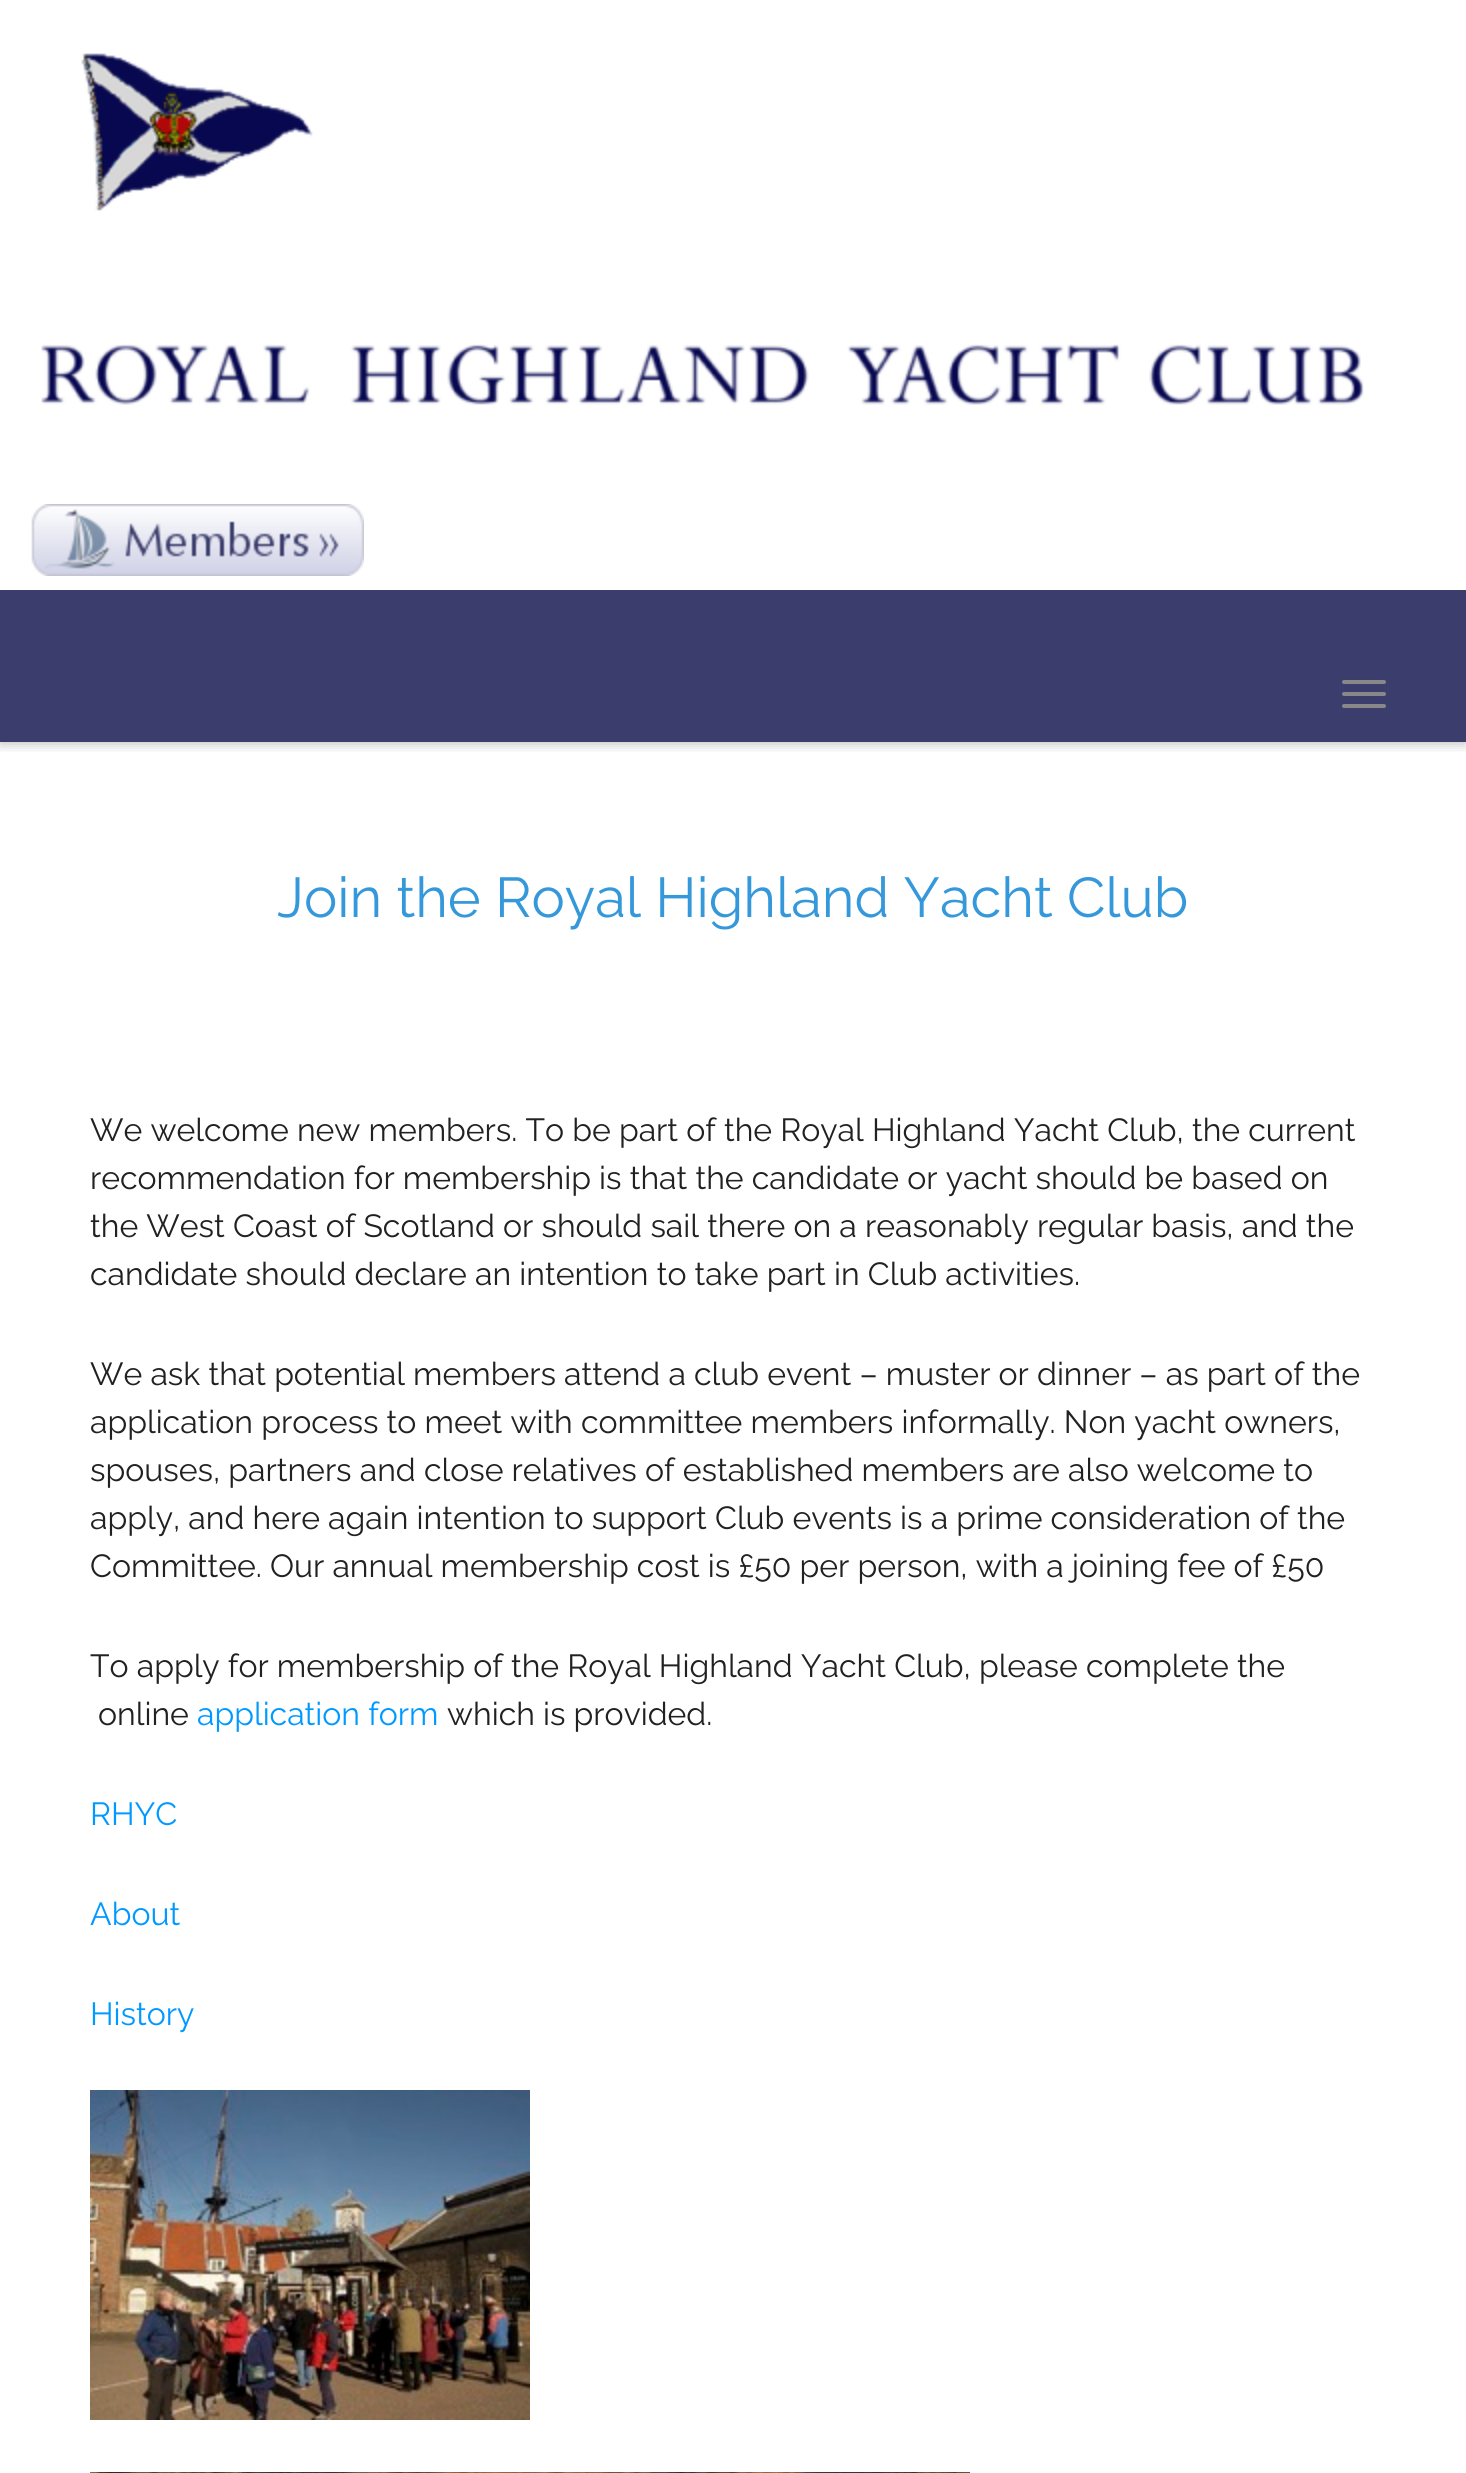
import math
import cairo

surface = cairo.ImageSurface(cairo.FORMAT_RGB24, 1466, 2473)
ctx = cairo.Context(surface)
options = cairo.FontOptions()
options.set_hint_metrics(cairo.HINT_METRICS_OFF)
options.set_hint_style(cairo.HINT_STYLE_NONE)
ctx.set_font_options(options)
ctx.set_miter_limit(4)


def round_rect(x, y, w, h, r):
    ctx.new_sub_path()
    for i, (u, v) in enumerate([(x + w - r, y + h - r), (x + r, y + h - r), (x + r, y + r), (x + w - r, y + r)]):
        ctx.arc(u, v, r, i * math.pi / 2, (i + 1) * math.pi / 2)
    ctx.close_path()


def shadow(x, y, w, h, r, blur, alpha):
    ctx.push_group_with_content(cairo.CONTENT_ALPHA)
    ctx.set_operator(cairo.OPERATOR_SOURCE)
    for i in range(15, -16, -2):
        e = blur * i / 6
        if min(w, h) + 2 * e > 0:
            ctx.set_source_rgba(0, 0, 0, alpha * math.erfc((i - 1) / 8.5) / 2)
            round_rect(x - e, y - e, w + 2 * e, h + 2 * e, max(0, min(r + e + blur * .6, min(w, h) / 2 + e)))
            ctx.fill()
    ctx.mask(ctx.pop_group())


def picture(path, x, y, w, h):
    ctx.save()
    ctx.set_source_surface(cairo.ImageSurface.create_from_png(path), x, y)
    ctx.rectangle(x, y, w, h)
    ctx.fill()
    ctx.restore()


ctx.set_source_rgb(1, 1, 1)
ctx.paint()
ctx.save()
ctx.rectangle(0, 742, 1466, 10)
ctx.clip()
ctx.set_source_rgb(0, 0, 0)
shadow(0, 2, 1466, 742, 0, 6, 0.25)
ctx.restore()
picture("img1.png", 81, 53, 232, 158)
picture("img2.png", 41, 344, 1323, 61)
picture("img3.png", 31, 504, 333, 72)
ctx.set_source_rgb(0.231, 0.239, 0.424)
ctx.rectangle(0, 590, 1466, 152)
ctx.fill()
ctx.set_source_rgb(0.533, 0.533, 0.533)
round_rect(1342, 680, 44, 4, 2)
ctx.fill()
round_rect(1342, 692, 44, 4, 2)
ctx.fill()
round_rect(1342, 704, 44, 4, 2)
ctx.fill()
ctx.select_font_face("Raleway")
ctx.set_font_size(56)
ctx.set_source_rgb(0.204, 0.596, 0.859)
ctx.move_to(277, 917)
ctx.show_text("Join the Royal Highland Yacht Club")
ctx.set_font_size(32)
ctx.set_source_rgb(0.129, 0.129, 0.129)
ctx.move_to(90, 1141)
ctx.show_text("We welcome new members. To be part of the Royal Highland Yacht Club, the current")
ctx.move_to(90, 1189)
ctx.show_text("recommendation for membership is that the candidate or yacht should be based on")
ctx.move_to(90, 1237)
ctx.show_text("the West Coast of Scotland or should sail there on a reasonably regular basis, and the")
ctx.move_to(90, 1285)
ctx.show_text("candidate should declare an intention to take part in Club activities.")
ctx.move_to(90, 1385)
ctx.show_text("We ask that potential members attend a club event – muster or dinner – as part of the")
ctx.move_to(90, 1433)
ctx.show_text("application process to meet with committee members informally. Non yacht owners,")
ctx.move_to(90, 1481)
ctx.show_text("spouses, partners and close relatives of established members are also welcome to")
ctx.move_to(90, 1529)
ctx.show_text("apply, and here again intention to support Club events is a prime consideration of the")
ctx.move_to(90, 1577)
ctx.show_text("Committee. Our annual membership cost is £50 per person, with a joining fee of £50")
ctx.move_to(90, 1677)
ctx.show_text("To apply for membership of the Royal Highland Yacht Club, please complete the")
ctx.move_to(98, 1725)
ctx.show_text("online")
ctx.set_source_rgb(0, 0.6, 1)
ctx.move_to(197, 1725)
ctx.show_text("application form")
ctx.set_source_rgb(0.129, 0.129, 0.129)
ctx.move_to(447, 1725)
ctx.show_text("which is provided.")
ctx.set_source_rgb(0, 0.6, 1)
ctx.move_to(90, 1825)
ctx.show_text("RHYC")
ctx.move_to(90, 1925)
ctx.show_text("About")
ctx.move_to(90, 2025)
ctx.show_text("History")
picture("img4.png", 90, 2090, 440, 330)
picture("img5.png", 90, 2472, 880, 1)
surface.write_to_png("page.png")
